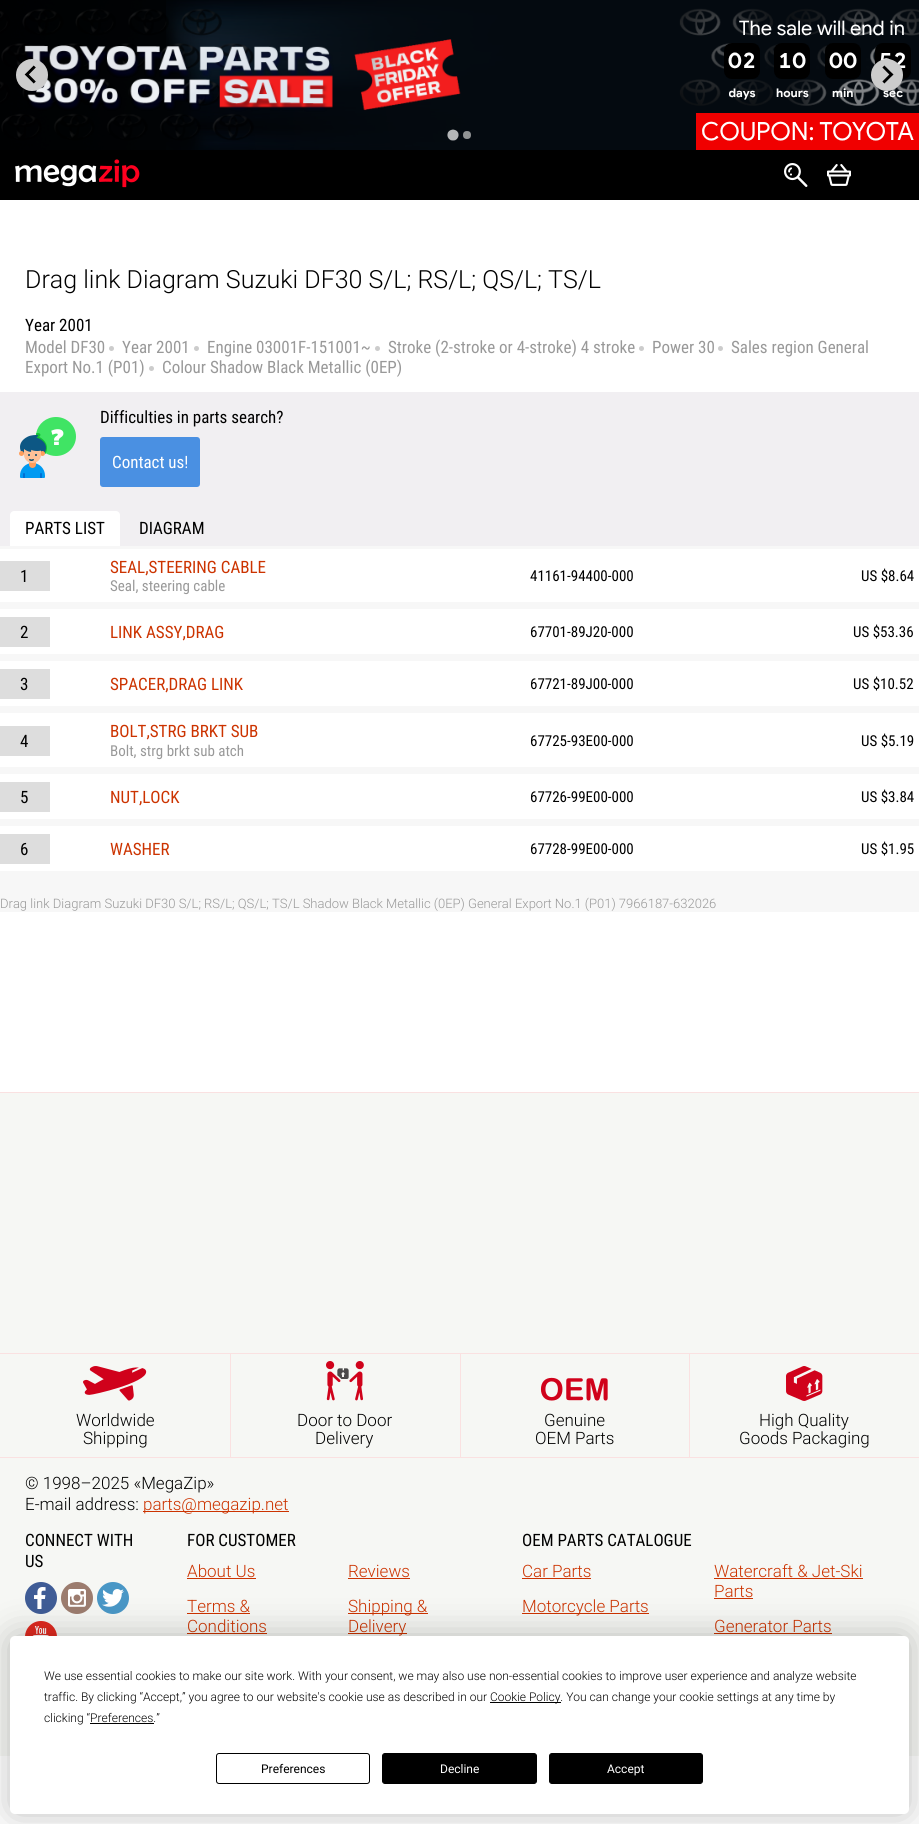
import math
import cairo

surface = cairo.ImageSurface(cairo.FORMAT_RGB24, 919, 1824)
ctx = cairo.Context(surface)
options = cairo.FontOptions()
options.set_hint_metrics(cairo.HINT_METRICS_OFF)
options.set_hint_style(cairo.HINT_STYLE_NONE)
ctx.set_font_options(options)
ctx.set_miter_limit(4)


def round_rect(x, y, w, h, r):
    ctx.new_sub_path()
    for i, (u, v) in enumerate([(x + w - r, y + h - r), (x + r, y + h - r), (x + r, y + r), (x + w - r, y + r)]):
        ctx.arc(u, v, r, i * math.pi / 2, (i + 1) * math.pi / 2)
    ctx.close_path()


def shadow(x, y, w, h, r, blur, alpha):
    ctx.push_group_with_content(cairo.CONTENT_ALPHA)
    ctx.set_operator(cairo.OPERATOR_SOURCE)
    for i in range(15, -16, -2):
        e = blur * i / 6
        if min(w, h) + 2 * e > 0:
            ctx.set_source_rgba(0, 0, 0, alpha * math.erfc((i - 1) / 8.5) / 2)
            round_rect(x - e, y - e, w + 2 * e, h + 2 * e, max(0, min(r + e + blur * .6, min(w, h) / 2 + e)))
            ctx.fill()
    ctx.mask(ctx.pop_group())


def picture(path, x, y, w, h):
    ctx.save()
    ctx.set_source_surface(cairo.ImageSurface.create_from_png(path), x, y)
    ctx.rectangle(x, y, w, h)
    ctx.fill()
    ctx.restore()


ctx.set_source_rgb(1, 1, 1)
ctx.paint()
picture("img1.png", 0, 0, 919, 150)
ctx.set_source_rgb(0, 0, 0)
ctx.rectangle(0, 150, 919, 50)
ctx.fill()
picture("img2.png", 15, 159, 125, 29)
picture("img3.png", 784, 163, 24, 24)
picture("img4.png", 827, 164, 24, 22)
ctx.select_font_face("Roboto Light")
ctx.set_font_size(25)
ctx.move_to(25, 288)
ctx.show_text("Drag link Diagram Suzuki DF30 S/L; RS/L; QS/L; TS/L")
ctx.select_font_face("Roboto Condensed")
ctx.set_font_size(17)
ctx.move_to(25, 331)
ctx.show_text("Year 2001")
ctx.set_source_rgb(0.6, 0.6, 0.6)
ctx.move_to(25, 353)
ctx.show_text("Model DF30")
ctx.set_source_rgb(0.8, 0.8, 0.8)
ctx.new_path()
ctx.arc(111.5, 348.5, 2.5, 0, 2 * math.pi)
ctx.fill()
ctx.set_source_rgb(0.6, 0.6, 0.6)
ctx.move_to(122, 353)
ctx.show_text("Year 2001")
ctx.set_source_rgb(0.8, 0.8, 0.8)
ctx.new_path()
ctx.arc(196.5, 348.5, 2.5, 0, 2 * math.pi)
ctx.fill()
ctx.set_source_rgb(0.6, 0.6, 0.6)
ctx.move_to(207, 353)
ctx.show_text("Engine 03001F-151001~")
ctx.set_source_rgb(0.8, 0.8, 0.8)
ctx.new_path()
ctx.arc(377.5, 348.5, 2.5, 0, 2 * math.pi)
ctx.fill()
ctx.set_source_rgb(0.6, 0.6, 0.6)
ctx.move_to(388, 353)
ctx.show_text("Stroke (2-stroke or 4-stroke) 4 stroke")
ctx.set_source_rgb(0.8, 0.8, 0.8)
ctx.new_path()
ctx.arc(641.5, 348.5, 2.5, 0, 2 * math.pi)
ctx.fill()
ctx.set_source_rgb(0.6, 0.6, 0.6)
ctx.move_to(652, 353)
ctx.show_text("Power 30")
ctx.set_source_rgb(0.8, 0.8, 0.8)
ctx.new_path()
ctx.arc(720.5, 348.5, 2.5, 0, 2 * math.pi)
ctx.fill()
ctx.set_source_rgb(0.6, 0.6, 0.6)
ctx.move_to(731, 353)
ctx.show_text("Sales region General")
ctx.move_to(25, 373)
ctx.show_text("Export No.1 (P01)")
ctx.set_source_rgb(0.8, 0.8, 0.8)
ctx.new_path()
ctx.arc(151.5, 368.5, 2.5, 0, 2 * math.pi)
ctx.fill()
ctx.set_source_rgb(0.6, 0.6, 0.6)
ctx.move_to(162, 373)
ctx.show_text("Colour Shadow Black Metallic (0EP)")
ctx.set_source_rgb(0.945, 0.937, 0.949)
ctx.rectangle(0, 392, 919, 154)
ctx.fill()
picture("img5.png", 19, 417, 57, 61)
ctx.set_source_rgb(0, 0, 0)
ctx.move_to(100, 423)
ctx.show_text("Difficulties in parts search?")
ctx.set_source_rgb(0.29, 0.565, 0.886)
round_rect(100, 437, 100, 50, 3)
ctx.fill()
ctx.set_source_rgb(1, 1, 1)
ctx.move_to(112, 468)
ctx.show_text("Contact us!")
ctx.new_path()
ctx.move_to(14, 511)
ctx.line_to(116, 511)
ctx.curve_to(118, 511, 120, 513, 120, 515)
ctx.line_to(120, 546)
ctx.line_to(10, 546)
ctx.line_to(10, 515)
ctx.curve_to(10, 513, 12, 511, 14, 511)
ctx.close_path()
ctx.fill()
ctx.set_source_rgb(0, 0, 0)
ctx.move_to(25, 534)
ctx.show_text("PARTS LIST")
ctx.move_to(139, 534)
ctx.show_text("DIAGRAM")
ctx.set_source_rgb(0.965, 0.965, 0.965)
ctx.rectangle(0, 875, 919, 37)
ctx.fill()
ctx.rectangle(0, 546, 919, 3)
ctx.fill()
ctx.rectangle(0, 602, 919, 4)
ctx.fill()
ctx.set_source_rgb(0.867, 0.867, 0.867)
ctx.rectangle(0, 561, 50, 30)
ctx.fill()
ctx.set_source_rgb(0, 0, 0)
ctx.move_to(20, 582)
ctx.show_text("1")
ctx.set_source_rgb(0.8, 0.2, 0)
ctx.move_to(110, 573)
ctx.show_text("SEAL,STEERING CABLE")
ctx.set_font_size(15)
ctx.set_source_rgb(0.6, 0.6, 0.6)
ctx.move_to(110, 591)
ctx.show_text("Seal, steering cable")
ctx.set_source_rgb(0, 0, 0)
ctx.move_to(530, 581)
ctx.show_text("41161-94400-000")
ctx.move_to(861, 581)
ctx.show_text("US $8.64")
ctx.set_source_rgb(0.965, 0.965, 0.965)
ctx.rectangle(0, 606, 919, 3)
ctx.fill()
ctx.rectangle(0, 654, 919, 4)
ctx.fill()
ctx.set_source_rgb(0.867, 0.867, 0.867)
ctx.rectangle(0, 617, 50, 30)
ctx.fill()
ctx.set_font_size(17)
ctx.set_source_rgb(0, 0, 0)
ctx.move_to(20, 638)
ctx.show_text("2")
ctx.set_source_rgb(0.8, 0.2, 0)
ctx.move_to(110, 638)
ctx.show_text("LINK ASSY,DRAG")
ctx.set_font_size(15)
ctx.set_source_rgb(0, 0, 0)
ctx.move_to(530, 637)
ctx.show_text("67701-89J20-000")
ctx.move_to(853, 637)
ctx.show_text("US $53.36")
ctx.set_source_rgb(0.965, 0.965, 0.965)
ctx.rectangle(0, 658, 919, 3)
ctx.fill()
ctx.rectangle(0, 706, 919, 4)
ctx.fill()
ctx.set_source_rgb(0.867, 0.867, 0.867)
ctx.rectangle(0, 669, 50, 30)
ctx.fill()
ctx.set_font_size(17)
ctx.set_source_rgb(0, 0, 0)
ctx.move_to(20, 690)
ctx.show_text("3")
ctx.set_source_rgb(0.8, 0.2, 0)
ctx.move_to(110, 690)
ctx.show_text("SPACER,DRAG LINK")
ctx.set_font_size(15)
ctx.set_source_rgb(0, 0, 0)
ctx.move_to(530, 689)
ctx.show_text("67721-89J00-000")
ctx.move_to(853, 689)
ctx.show_text("US $10.52")
ctx.set_source_rgb(0.965, 0.965, 0.965)
ctx.rectangle(0, 710, 919, 3)
ctx.fill()
ctx.rectangle(0, 767, 919, 4)
ctx.fill()
ctx.set_source_rgb(0.867, 0.867, 0.867)
ctx.rectangle(0, 726, 50, 30)
ctx.fill()
ctx.set_font_size(17)
ctx.set_source_rgb(0, 0, 0)
ctx.move_to(20, 747)
ctx.show_text("4")
ctx.set_source_rgb(0.8, 0.2, 0)
ctx.move_to(110, 737)
ctx.show_text("BOLT,STRG BRKT SUB")
ctx.set_font_size(15)
ctx.set_source_rgb(0.6, 0.6, 0.6)
ctx.move_to(110, 756)
ctx.show_text("Bolt, strg brkt sub atch")
ctx.set_source_rgb(0, 0, 0)
ctx.move_to(530, 746)
ctx.show_text("67725-93E00-000")
ctx.move_to(861, 746)
ctx.show_text("US $5.19")
ctx.set_source_rgb(0.965, 0.965, 0.965)
ctx.rectangle(0, 771, 919, 3)
ctx.fill()
ctx.rectangle(0, 819, 919, 4)
ctx.fill()
ctx.set_source_rgb(0.867, 0.867, 0.867)
ctx.rectangle(0, 782, 50, 30)
ctx.fill()
ctx.set_font_size(17)
ctx.set_source_rgb(0, 0, 0)
ctx.move_to(20, 803)
ctx.show_text("5")
ctx.set_source_rgb(0.8, 0.2, 0)
ctx.move_to(110, 803)
ctx.show_text("NUT,LOCK")
ctx.set_font_size(15)
ctx.set_source_rgb(0, 0, 0)
ctx.move_to(530, 802)
ctx.show_text("67726-99E00-000")
ctx.move_to(861, 802)
ctx.show_text("US $3.84")
ctx.set_source_rgb(0.965, 0.965, 0.965)
ctx.rectangle(0, 823, 919, 3)
ctx.fill()
ctx.rectangle(0, 871, 919, 4)
ctx.fill()
ctx.set_source_rgb(0.867, 0.867, 0.867)
ctx.rectangle(0, 834, 50, 30)
ctx.fill()
ctx.set_font_size(17)
ctx.set_source_rgb(0, 0, 0)
ctx.move_to(20, 855)
ctx.show_text("6")
ctx.set_source_rgb(0.8, 0.2, 0)
ctx.move_to(110, 855)
ctx.show_text("WASHER")
ctx.set_font_size(15)
ctx.set_source_rgb(0, 0, 0)
ctx.move_to(530, 854)
ctx.show_text("67728-99E00-000")
ctx.move_to(861, 854)
ctx.show_text("US $1.95")
ctx.select_font_face("Roboto Light")
ctx.set_font_size(13)
ctx.set_source_rgb(0.6, 0.6, 0.6)
ctx.move_to(0, 908)
ctx.show_text("Drag link Diagram Suzuki DF30 S/L; RS/L; QS/L; TS/L Shadow Black Metallic (0EP) General Export No.1 (P01) 7966187-632026")
ctx.set_source_rgb(0.961, 0.965, 0.957)
ctx.rectangle(0, 1093, 919, 663)
ctx.fill()
ctx.set_source_rgb(0.98, 0.882, 0.882)
ctx.rectangle(0, 1092, 919, 1)
ctx.fill()
ctx.rectangle(0, 1353, 919, 1)
ctx.fill()
ctx.rectangle(230, 1354, 1, 103)
ctx.fill()
picture("img6.png", 83, 1366, 64, 35)
ctx.set_font_size(17)
ctx.set_source_rgb(0, 0, 0)
ctx.move_to(76, 1426)
ctx.show_text("Worldwide")
ctx.move_to(83, 1444)
ctx.show_text("Shipping")
ctx.set_source_rgb(0.98, 0.882, 0.882)
ctx.rectangle(460, 1354, 1, 103)
ctx.fill()
picture("img7.png", 326, 1361, 38, 40)
ctx.set_source_rgb(0, 0, 0)
ctx.move_to(297, 1426)
ctx.show_text("Door to Door")
ctx.move_to(315, 1444)
ctx.show_text("Delivery")
ctx.set_source_rgb(0.98, 0.882, 0.882)
ctx.rectangle(689, 1354, 1, 103)
ctx.fill()
picture("img8.png", 540, 1377, 68, 24)
ctx.set_source_rgb(0, 0, 0)
ctx.move_to(544, 1426)
ctx.show_text("Genuine")
ctx.move_to(535, 1444)
ctx.show_text("OEM Parts")
picture("img9.png", 786, 1366, 37, 35)
ctx.move_to(759, 1426)
ctx.show_text("High Quality")
ctx.move_to(739, 1444)
ctx.show_text("Goods Packaging")
ctx.set_source_rgb(0.98, 0.882, 0.882)
ctx.rectangle(0, 1457, 919, 1)
ctx.fill()
ctx.set_source_rgb(0, 0, 0)
ctx.move_to(25, 1489)
ctx.show_text("© 1998–2025 «MegaZip»")
ctx.move_to(25, 1510)
ctx.show_text("E-mail address:")
ctx.set_source_rgb(0.8, 0.2, 0)
ctx.rectangle(143, 1511, 146, 1)
ctx.fill()
ctx.move_to(143, 1510)
ctx.show_text("parts@megazip.net")
ctx.select_font_face("Roboto Condensed")
ctx.set_source_rgb(0, 0, 0)
ctx.move_to(25, 1546)
ctx.show_text("CONNECT WITH")
ctx.move_to(25, 1567)
ctx.show_text("US")
picture("img10.png", 25, 1582, 32, 32)
picture("img11.png", 61, 1582, 32, 32)
picture("img12.png", 97, 1582, 32, 32)
picture("img13.png", 25, 1621, 32, 15)
ctx.move_to(187, 1546)
ctx.show_text("FOR CUSTOMER")
ctx.select_font_face("Roboto Light")
ctx.set_source_rgb(0.8, 0.2, 0)
ctx.move_to(187, 1577)
ctx.show_text("About Us")
ctx.rectangle(187, 1578, 69, 1)
ctx.fill()
ctx.move_to(348, 1577)
ctx.show_text("Reviews")
ctx.rectangle(348, 1578, 62, 1)
ctx.fill()
ctx.move_to(187, 1612)
ctx.show_text("Terms &")
ctx.rectangle(187, 1613, 63, 1)
ctx.fill()
ctx.move_to(187, 1632)
ctx.show_text("Conditions")
ctx.rectangle(187, 1633, 80, 1)
ctx.fill()
ctx.rectangle(348, 1613, 80, 1)
ctx.fill()
ctx.move_to(348, 1612)
ctx.show_text("Shipping &")
ctx.rectangle(348, 1633, 59, 1)
ctx.fill()
ctx.move_to(348, 1632)
ctx.show_text("Delivery")
ctx.select_font_face("Roboto Condensed")
ctx.set_source_rgb(0, 0, 0)
ctx.move_to(522, 1546)
ctx.show_text("OEM PARTS CATALOGUE")
ctx.select_font_face("Roboto Light")
ctx.set_source_rgb(0.8, 0.2, 0)
ctx.move_to(522, 1577)
ctx.show_text("Car Parts")
ctx.rectangle(522, 1578, 69, 1)
ctx.fill()
ctx.move_to(714, 1577)
ctx.show_text("Watercraft & Jet-Ski")
ctx.rectangle(714, 1578, 149, 1)
ctx.fill()
ctx.move_to(714, 1597)
ctx.show_text("Parts")
ctx.rectangle(714, 1598, 39, 1)
ctx.fill()
ctx.rectangle(522, 1613, 127, 1)
ctx.fill()
ctx.move_to(522, 1612)
ctx.show_text("Motorcycle Parts")
ctx.move_to(714, 1632)
ctx.show_text("Generator Parts")
ctx.rectangle(714, 1633, 118, 1)
ctx.fill()
ctx.set_source_rgb(0, 0, 0)
shadow(10, 1636, 899, 178, 5, 17.5, 0.25)
ctx.set_source_rgb(1, 1, 1)
round_rect(10, 1636, 899, 178, 5)
ctx.fill()
ctx.set_font_size(12)
ctx.set_source_rgb(0, 0, 0)
ctx.move_to(44, 1680)
ctx.show_text("We use essential cookies to make our site work. With your consent, we may also use non-essential cookies to improve user experience and analyze website")
ctx.move_to(44, 1701)
ctx.show_text("traffic. By clicking “Accept,” you agree to our website's cookie use as described in our")
ctx.rectangle(490, 1702, 71, 1)
ctx.fill()
ctx.move_to(490, 1701)
ctx.show_text("Cookie Policy. You can change your cookie settings at any time by")
ctx.move_to(44, 1722)
ctx.show_text("clicking “Preferences.”")
ctx.rectangle(90, 1723, 64, 1)
ctx.fill()
round_rect(216.5, 1753.5, 153, 30, 2.5)
ctx.set_line_width(1)
ctx.stroke()
ctx.select_font_face("Roboto")
ctx.move_to(261, 1773)
ctx.show_text("Preferences")
round_rect(382.5, 1753.5, 154, 30, 2.5)
ctx.fill_preserve()
ctx.stroke()
ctx.set_source_rgb(1, 1, 1)
ctx.move_to(440, 1773)
ctx.show_text("Decline")
ctx.set_source_rgb(0, 0, 0)
round_rect(549.5, 1753.5, 153, 30, 2.5)
ctx.fill_preserve()
ctx.stroke()
ctx.set_source_rgb(1, 1, 1)
ctx.move_to(607, 1773)
ctx.show_text("Accept")
surface.write_to_png("page.png")
